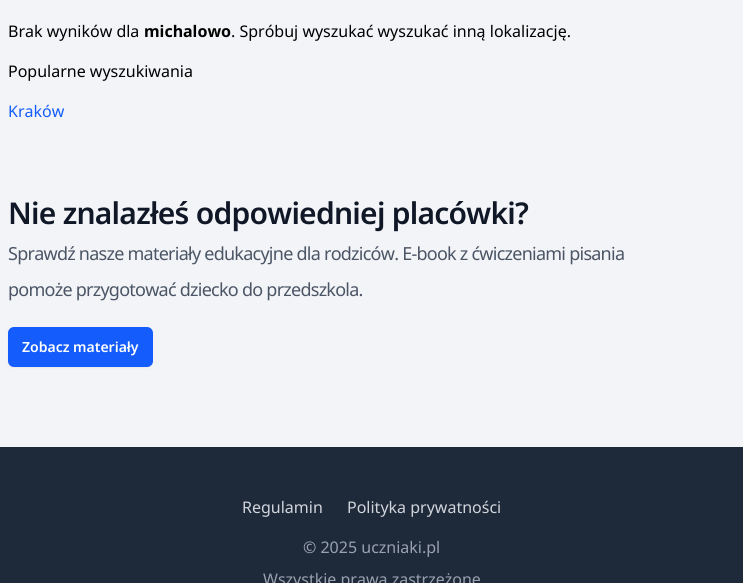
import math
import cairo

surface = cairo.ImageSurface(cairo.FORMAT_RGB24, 743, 583)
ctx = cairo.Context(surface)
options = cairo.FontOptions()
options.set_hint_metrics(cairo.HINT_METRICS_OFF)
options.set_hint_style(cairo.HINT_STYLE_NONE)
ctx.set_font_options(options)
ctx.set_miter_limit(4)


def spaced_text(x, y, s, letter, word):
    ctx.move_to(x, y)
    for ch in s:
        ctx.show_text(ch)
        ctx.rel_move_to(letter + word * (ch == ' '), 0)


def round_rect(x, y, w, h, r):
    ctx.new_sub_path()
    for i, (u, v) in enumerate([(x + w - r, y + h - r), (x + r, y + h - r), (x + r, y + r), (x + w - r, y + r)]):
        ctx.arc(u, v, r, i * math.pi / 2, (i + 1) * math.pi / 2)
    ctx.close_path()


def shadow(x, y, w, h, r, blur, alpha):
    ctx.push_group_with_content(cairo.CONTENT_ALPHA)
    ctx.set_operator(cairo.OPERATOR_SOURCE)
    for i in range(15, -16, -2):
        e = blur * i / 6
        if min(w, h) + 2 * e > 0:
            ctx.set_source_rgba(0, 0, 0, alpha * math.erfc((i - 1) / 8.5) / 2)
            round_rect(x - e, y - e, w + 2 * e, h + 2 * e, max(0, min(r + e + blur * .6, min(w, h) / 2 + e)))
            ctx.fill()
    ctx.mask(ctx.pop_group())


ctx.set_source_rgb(0.953, 0.957, 0.965)
ctx.paint()
ctx.select_font_face("Noto Sans")
ctx.set_font_size(16)
ctx.set_source_rgb(0, 0, 0)
ctx.move_to(8, 37)
ctx.show_text("Brak wyników dla")
ctx.select_font_face("Noto Sans", cairo.FONT_SLANT_NORMAL, cairo.FONT_WEIGHT_BOLD)
ctx.move_to(144, 37)
ctx.show_text("michalowo")
ctx.select_font_face("Noto Sans")
ctx.move_to(231, 37)
ctx.show_text(". Spróbuj wyszukać wyszukać inną lokalizację.")
ctx.move_to(8, 77)
ctx.show_text("Popularne wyszukiwania")
ctx.set_source_rgb(0.082, 0.365, 0.988)
ctx.move_to(8, 117)
ctx.show_text("Kraków")
ctx.select_font_face("Noto Sans SemiBold")
ctx.set_font_size(30)
ctx.set_source_rgb(0.063, 0.094, 0.157)
spaced_text(8, 224, "Nie znalazłeś odpowiedniej placówki?", -0.75, 0)
ctx.select_font_face("Noto Sans")
ctx.set_font_size(18)
ctx.set_source_rgb(0.29, 0.333, 0.396)
spaced_text(8, 260, "Sprawdź nasze materiały edukacyjne dla rodziców. E-book z ćwiczeniami pisania", -0.75, 0)
spaced_text(8, 296, "pomoże przygotować dziecko do przedszkola.", -0.75, 0)
ctx.set_source_rgb(0, 0, 0)
shadow(8, 328, 145, 40, 6, 1, 0.05)
ctx.set_source_rgb(0.082, 0.365, 0.988)
round_rect(8, 327, 145, 40, 6)
ctx.fill()
ctx.select_font_face("Noto Sans SemiBold")
ctx.set_font_size(14)
ctx.set_source_rgb(1, 1, 1)
ctx.move_to(22, 352)
ctx.show_text("Zobacz materiały")
ctx.set_source_rgb(0.118, 0.161, 0.224)
ctx.rectangle(0, 447, 743, 136)
ctx.fill()
ctx.select_font_face("Noto Sans")
ctx.set_font_size(16)
ctx.set_source_rgb(0.82, 0.835, 0.863)
ctx.move_to(242, 513)
ctx.show_text("Regulamin")
ctx.move_to(347, 513)
ctx.show_text("Polityka prywatności")
ctx.set_source_rgb(0.6, 0.631, 0.686)
ctx.move_to(303, 553)
ctx.show_text("© 2025 uczniaki.pl")
ctx.move_to(263, 585)
ctx.show_text("Wszystkie prawa zastrzeżone")
surface.write_to_png("page.png")
